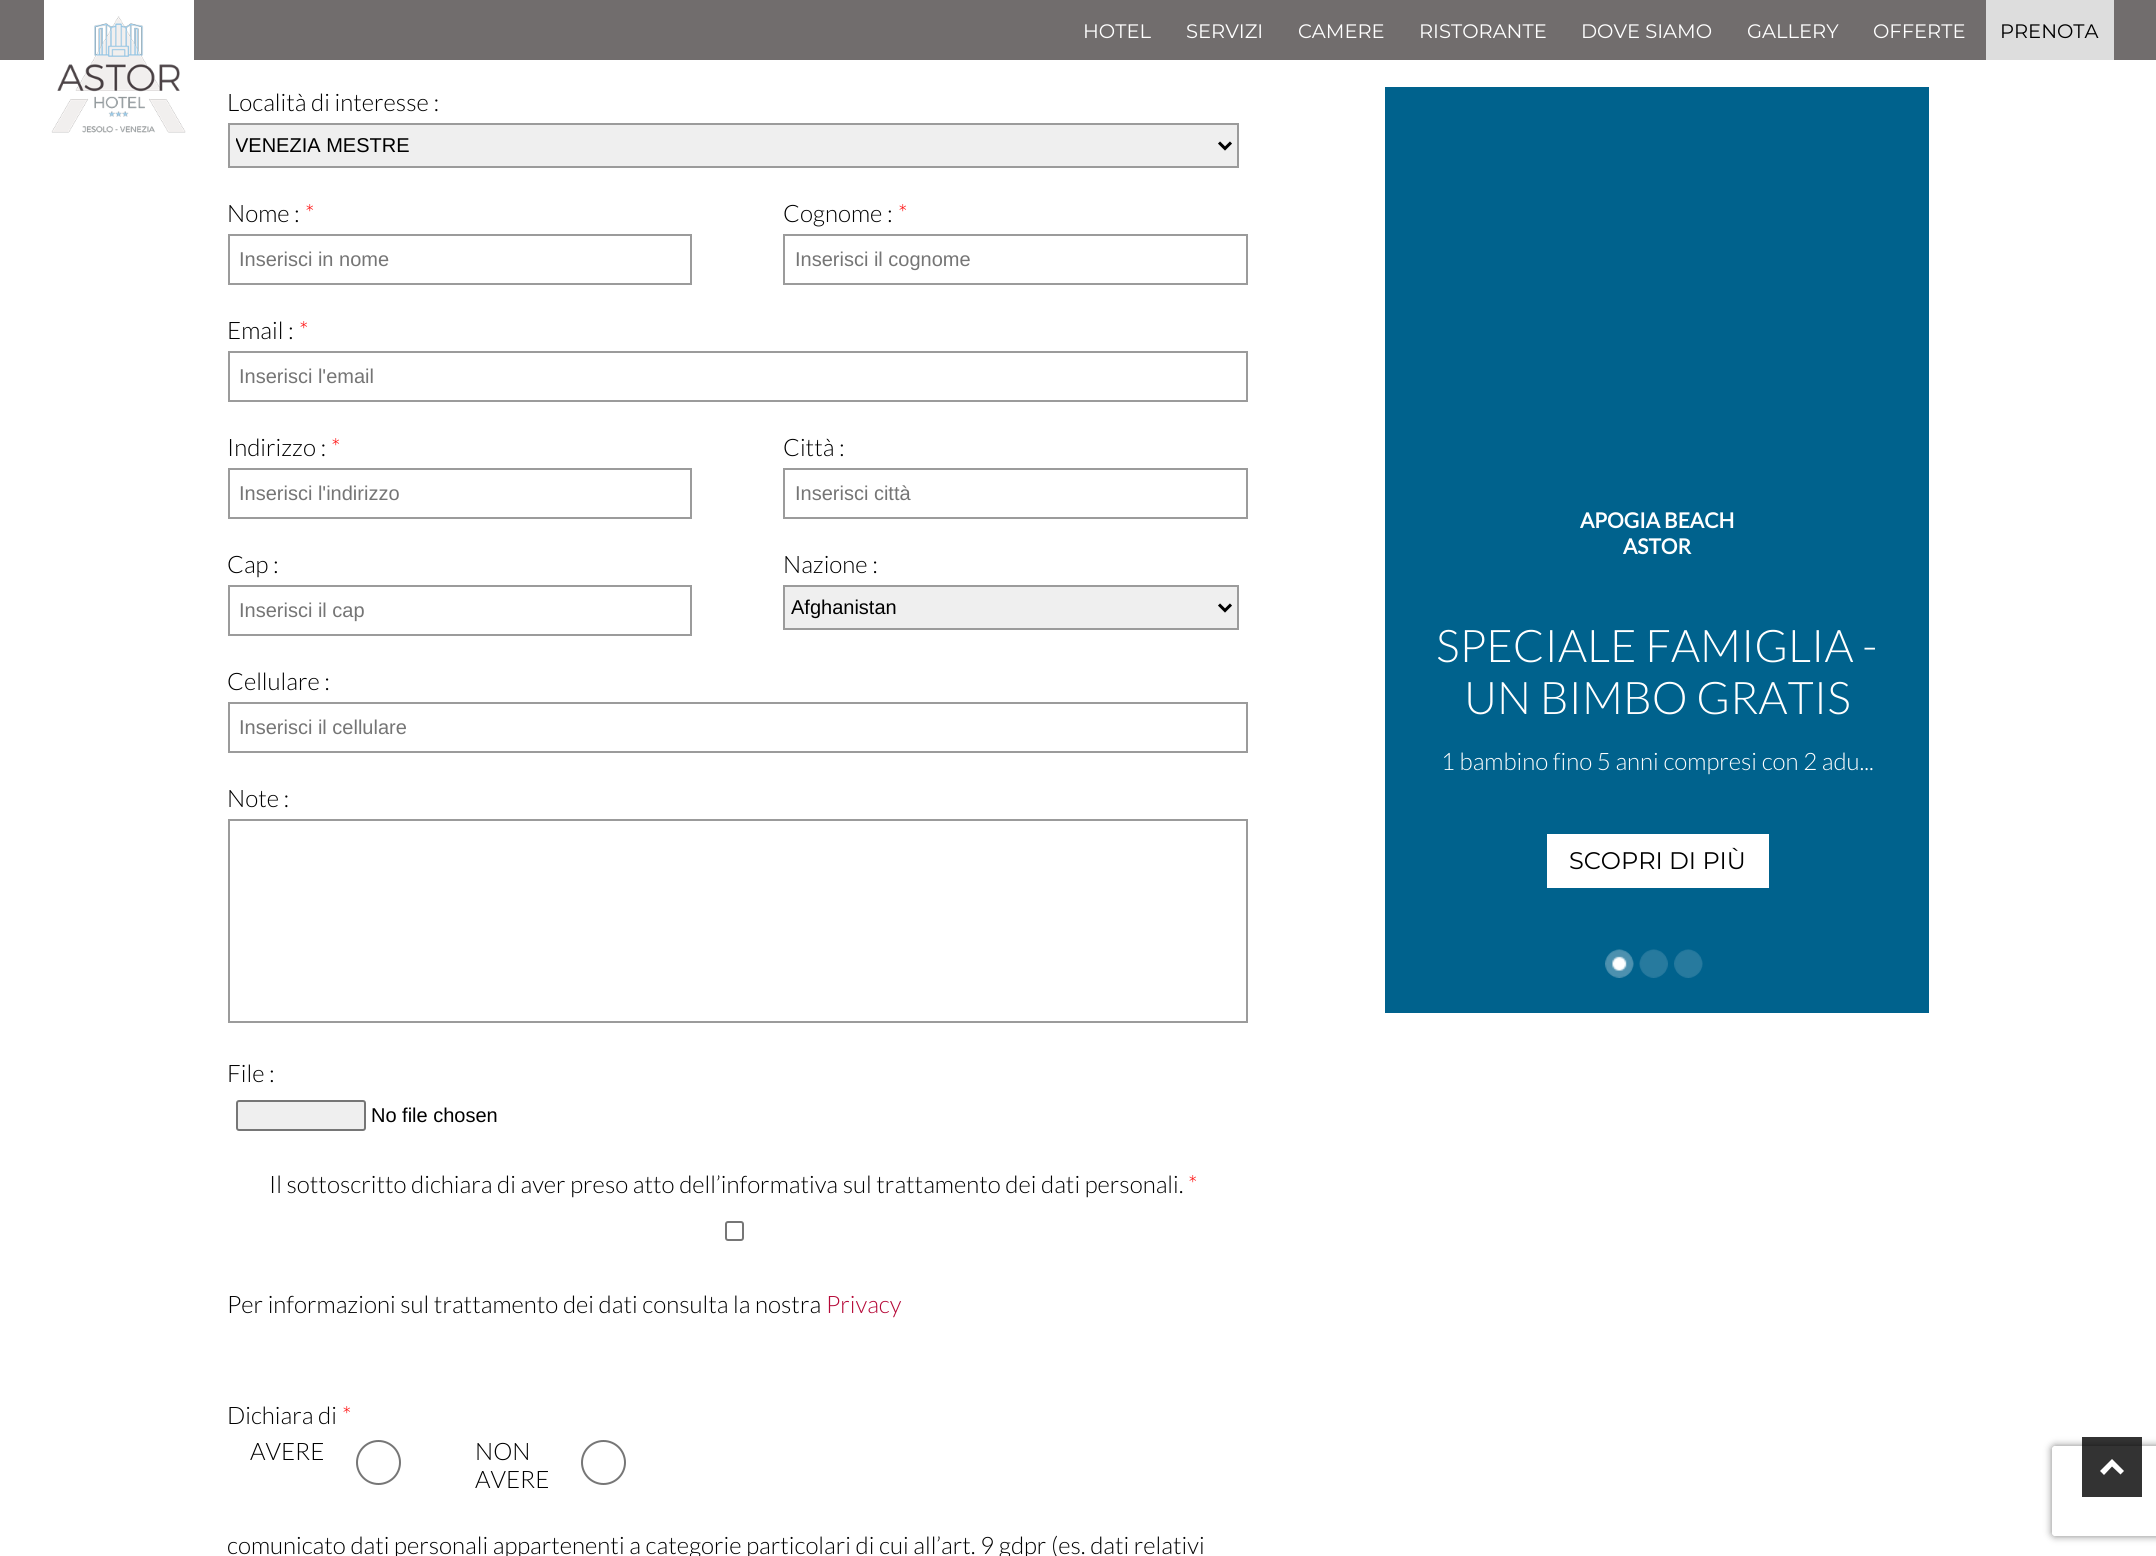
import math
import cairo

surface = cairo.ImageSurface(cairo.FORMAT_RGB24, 2156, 1556)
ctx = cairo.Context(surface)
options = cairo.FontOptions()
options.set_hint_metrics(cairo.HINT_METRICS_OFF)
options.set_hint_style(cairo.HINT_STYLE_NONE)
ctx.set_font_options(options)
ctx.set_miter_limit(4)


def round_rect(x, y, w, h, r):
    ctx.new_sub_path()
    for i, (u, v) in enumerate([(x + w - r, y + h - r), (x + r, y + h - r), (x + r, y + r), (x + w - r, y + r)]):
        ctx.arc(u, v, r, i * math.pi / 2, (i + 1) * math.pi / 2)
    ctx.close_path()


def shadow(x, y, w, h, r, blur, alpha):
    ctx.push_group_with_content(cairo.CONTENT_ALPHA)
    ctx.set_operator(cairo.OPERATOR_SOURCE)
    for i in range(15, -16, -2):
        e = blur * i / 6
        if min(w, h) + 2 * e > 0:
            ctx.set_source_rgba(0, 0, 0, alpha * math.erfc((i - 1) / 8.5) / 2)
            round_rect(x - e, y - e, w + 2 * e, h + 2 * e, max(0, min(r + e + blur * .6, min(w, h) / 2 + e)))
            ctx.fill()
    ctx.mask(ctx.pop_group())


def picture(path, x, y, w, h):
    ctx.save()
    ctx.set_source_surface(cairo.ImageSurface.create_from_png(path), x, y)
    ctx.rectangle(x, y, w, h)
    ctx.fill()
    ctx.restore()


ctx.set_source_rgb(1, 1, 1)
ctx.paint()
ctx.set_source_rgb(0.443, 0.427, 0.427)
ctx.rectangle(0, 0, 2156, 60)
ctx.fill()
ctx.set_source_rgb(1, 1, 1)
ctx.rectangle(44, 0, 150, 60)
ctx.fill()
picture("img1.png", 51, 16, 135, 117)
ctx.select_font_face("Montserrat Thin")
ctx.set_font_size(19.5)
ctx.move_to(1083, 38)
ctx.show_text("HOTEL")
ctx.move_to(1186, 38)
ctx.show_text("SERVIZI")
ctx.move_to(1298, 38)
ctx.show_text("CAMERE")
ctx.move_to(1419, 38)
ctx.show_text("RISTORANTE")
ctx.move_to(1581, 38)
ctx.show_text("DOVE SIAMO")
ctx.move_to(1747, 38)
ctx.show_text("GALLERY")
ctx.move_to(1873, 38)
ctx.show_text("OFFERTE")
ctx.set_source_rgb(0.867, 0.867, 0.867)
ctx.rectangle(1986, 0, 128, 60)
ctx.fill()
ctx.set_source_rgb(0, 0, 0)
ctx.move_to(2000, 38)
ctx.show_text("PRENOTA")
ctx.select_font_face("Lato Light")
ctx.set_font_size(24)
ctx.move_to(227, 111)
ctx.show_text("Località di interesse :")
ctx.set_source_rgb(0.937, 0.937, 0.937)
ctx.rectangle(229, 124, 1009, 43)
ctx.fill_preserve()
ctx.set_source_rgb(0.608, 0.608, 0.608)
ctx.stroke()
ctx.new_path()
ctx.move_to(1219, 142.5)
ctx.line_to(1225, 148.5)
ctx.line_to(1231, 142.5)
ctx.set_source_rgb(0, 0, 0)
ctx.set_line_width(3)
ctx.stroke()
ctx.save()
ctx.rectangle(236, 134, 978, 25)
ctx.clip()
ctx.select_font_face("Liberation Sans")
ctx.set_font_size(20)
ctx.move_to(235, 152)
ctx.show_text("VENEZIA MESTRE")
ctx.restore()
ctx.move_to(227, 222)
ctx.show_text("Nome :")
ctx.set_source_rgb(1, 0, 0)
ctx.move_to(305, 222)
ctx.show_text("*")
ctx.rectangle(229, 235, 462, 49)
ctx.set_source_rgb(0.608, 0.608, 0.608)
ctx.set_line_width(2)
ctx.stroke()
ctx.select_font_face("Liberation Sans")
ctx.set_font_size(20)
ctx.set_source_rgb(0.459, 0.459, 0.459)
ctx.move_to(239, 266)
ctx.show_text("Inserisci in nome")
ctx.select_font_face("Lato Light")
ctx.set_font_size(24)
ctx.set_source_rgb(0, 0, 0)
ctx.move_to(783, 222)
ctx.show_text("Cognome :")
ctx.set_source_rgb(1, 0, 0)
ctx.move_to(898, 222)
ctx.show_text("*")
ctx.rectangle(784, 235, 463, 49)
ctx.set_source_rgb(0.608, 0.608, 0.608)
ctx.stroke()
ctx.select_font_face("Liberation Sans")
ctx.set_font_size(20)
ctx.set_source_rgb(0.459, 0.459, 0.459)
ctx.move_to(795, 266)
ctx.show_text("Inserisci il cognome")
ctx.select_font_face("Lato Light")
ctx.set_font_size(24)
ctx.set_source_rgb(0, 0, 0)
ctx.move_to(227, 339)
ctx.show_text("Email :")
ctx.set_source_rgb(1, 0, 0)
ctx.move_to(299, 339)
ctx.show_text("*")
ctx.rectangle(229, 352, 1018, 49)
ctx.set_source_rgb(0.608, 0.608, 0.608)
ctx.stroke()
ctx.select_font_face("Liberation Sans")
ctx.set_font_size(20)
ctx.set_source_rgb(0.459, 0.459, 0.459)
ctx.move_to(239, 383)
ctx.show_text("Inserisci l'email")
ctx.select_font_face("Lato Light")
ctx.set_font_size(24)
ctx.set_source_rgb(0, 0, 0)
ctx.move_to(227, 456)
ctx.show_text("Indirizzo :")
ctx.set_source_rgb(1, 0, 0)
ctx.move_to(331, 456)
ctx.show_text("*")
ctx.rectangle(229, 469, 462, 49)
ctx.set_source_rgb(0.608, 0.608, 0.608)
ctx.stroke()
ctx.select_font_face("Liberation Sans")
ctx.set_font_size(20)
ctx.set_source_rgb(0.459, 0.459, 0.459)
ctx.move_to(239, 500)
ctx.show_text("Inserisci l'indirizzo")
ctx.select_font_face("Lato Light")
ctx.set_font_size(24)
ctx.set_source_rgb(0, 0, 0)
ctx.move_to(783, 456)
ctx.show_text("Città :")
ctx.rectangle(784, 469, 463, 49)
ctx.set_source_rgb(0.608, 0.608, 0.608)
ctx.stroke()
ctx.select_font_face("Liberation Sans")
ctx.set_font_size(20)
ctx.set_source_rgb(0.459, 0.459, 0.459)
ctx.move_to(795, 500)
ctx.show_text("Inserisci città")
ctx.select_font_face("Lato Light")
ctx.set_font_size(24)
ctx.set_source_rgb(0, 0, 0)
ctx.move_to(227, 573)
ctx.show_text("Cap :")
ctx.rectangle(229, 586, 462, 49)
ctx.set_source_rgb(0.608, 0.608, 0.608)
ctx.stroke()
ctx.select_font_face("Liberation Sans")
ctx.set_font_size(20)
ctx.set_source_rgb(0.459, 0.459, 0.459)
ctx.move_to(239, 617)
ctx.show_text("Inserisci il cap")
ctx.select_font_face("Lato Light")
ctx.set_font_size(24)
ctx.set_source_rgb(0, 0, 0)
ctx.move_to(783, 573)
ctx.show_text("Nazione :")
ctx.set_source_rgb(0.937, 0.937, 0.937)
ctx.rectangle(784, 586, 454, 43)
ctx.fill_preserve()
ctx.set_source_rgb(0.608, 0.608, 0.608)
ctx.stroke()
ctx.new_path()
ctx.move_to(1219, 604.5)
ctx.line_to(1225, 610.5)
ctx.line_to(1231, 604.5)
ctx.set_source_rgb(0, 0, 0)
ctx.set_line_width(3)
ctx.stroke()
ctx.select_font_face("Liberation Sans")
ctx.set_font_size(20)
ctx.move_to(791, 614)
ctx.show_text("Afghanistan")
ctx.select_font_face("Lato Light")
ctx.set_font_size(24)
ctx.move_to(227, 690)
ctx.show_text("Cellulare :")
ctx.rectangle(229, 703, 1018, 49)
ctx.set_source_rgb(0.608, 0.608, 0.608)
ctx.set_line_width(2)
ctx.stroke()
ctx.select_font_face("Liberation Sans")
ctx.set_font_size(20)
ctx.set_source_rgb(0.459, 0.459, 0.459)
ctx.move_to(239, 734)
ctx.show_text("Inserisci il cellulare")
ctx.select_font_face("Lato Light")
ctx.set_font_size(24)
ctx.set_source_rgb(0, 0, 0)
ctx.move_to(227, 807)
ctx.show_text("Note :")
ctx.rectangle(229, 820, 1018, 202)
ctx.set_source_rgb(0.608, 0.608, 0.608)
ctx.stroke()
ctx.set_source_rgb(0, 0, 0)
ctx.move_to(227, 1082)
ctx.show_text("File :")
ctx.set_source_rgb(0.937, 0.937, 0.937)
round_rect(237, 1101, 128, 29, 2)
ctx.fill_preserve()
ctx.set_source_rgb(0.463, 0.463, 0.463)
ctx.stroke()
ctx.select_font_face("Liberation Sans")
ctx.set_font_size(20)
ctx.set_source_rgb(0, 0, 0)
ctx.move_to(371, 1122)
ctx.show_text("No file chosen")
ctx.select_font_face("Lato Light")
ctx.set_font_size(24)
ctx.move_to(269, 1193)
ctx.show_text("Il sottoscritto dichiara di aver preso atto dell’informativa sul trattamento dei dati personali.")
ctx.set_source_rgb(1, 0, 0)
ctx.move_to(1188, 1193)
ctx.show_text("*")
round_rect(726, 1222, 17, 18, 2)
ctx.set_source_rgb(0.463, 0.463, 0.463)
ctx.stroke()
ctx.set_source_rgb(0, 0, 0)
ctx.move_to(227, 1313)
ctx.show_text("Per informazioni sul trattamento dei dati consulta la nostra")
ctx.set_source_rgb(0.71, 0.035, 0.216)
ctx.move_to(826, 1313)
ctx.show_text("Privacy")
ctx.set_source_rgb(0, 0, 0)
ctx.move_to(227, 1424)
ctx.show_text("Dichiara di")
ctx.set_source_rgb(1, 0, 0)
ctx.move_to(342, 1424)
ctx.show_text("*")
ctx.set_source_rgb(0, 0, 0)
ctx.move_to(250, 1460)
ctx.show_text("AVERE")
ctx.new_path()
ctx.arc(378.5, 1462.5, 21.5, 0, 2 * math.pi)
ctx.set_source_rgb(0.463, 0.463, 0.463)
ctx.stroke()
ctx.set_source_rgb(0, 0, 0)
ctx.move_to(475, 1460)
ctx.show_text("NON")
ctx.move_to(475, 1488)
ctx.show_text("AVERE")
ctx.new_path()
ctx.arc(603.5, 1462.5, 21.5, 0, 2 * math.pi)
ctx.set_source_rgb(0.463, 0.463, 0.463)
ctx.stroke()
ctx.set_source_rgb(0, 0, 0)
ctx.move_to(227, 1554)
ctx.show_text("comunicato dati personali appartenenti a categorie particolari di cui all’art. 9 gdpr (es. dati relativi")
ctx.set_source_rgb(0, 0.384, 0.553)
ctx.rectangle(1385, 87, 544, 926)
ctx.fill()
ctx.select_font_face("Lato", cairo.FONT_SLANT_NORMAL, cairo.FONT_WEIGHT_BOLD)
ctx.set_font_size(21)
ctx.set_source_rgb(1, 1, 1)
ctx.move_to(1580, 528)
ctx.show_text("APOGIA BEACH")
ctx.move_to(1623, 554)
ctx.show_text("ASTOR")
ctx.select_font_face("Lato Light")
ctx.set_font_size(45)
ctx.move_to(1436, 662)
ctx.show_text("SPECIALE FAMIGLIA -")
ctx.move_to(1464, 714)
ctx.show_text("UN BIMBO GRATIS")
ctx.set_font_size(24)
ctx.move_to(1441, 770)
ctx.show_text("1 bambino fino 5 anni compresi con 2 adu...")
ctx.rectangle(1547, 834, 222, 54)
ctx.fill()
ctx.select_font_face("Montserrat Thin")
ctx.set_source_rgb(0, 0, 0)
ctx.move_to(1569, 869)
ctx.show_text("SCOPRI DI PIÙ")
picture("img2.png", 1605, 949, 29, 29)
picture("img3.png", 1639, 949, 29, 29)
picture("img4.png", 1674, 949, 29, 29)
ctx.save()
ctx.set_fill_rule(cairo.FILL_RULE_EVEN_ODD)
ctx.new_path()
ctx.move_to(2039, 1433)
ctx.line_to(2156, 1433)
ctx.line_to(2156, 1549)
ctx.line_to(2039, 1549)
ctx.close_path()
ctx.move_to(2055, 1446)
ctx.line_to(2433, 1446)
ctx.curve_to(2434.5, 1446, 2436, 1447.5, 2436, 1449)
ctx.line_to(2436, 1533)
ctx.curve_to(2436, 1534.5, 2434.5, 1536, 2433, 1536)
ctx.line_to(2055, 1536)
ctx.curve_to(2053.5, 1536, 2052, 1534.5, 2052, 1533)
ctx.line_to(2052, 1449)
ctx.curve_to(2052, 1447.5, 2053.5, 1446, 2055, 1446)
ctx.close_path()
ctx.clip()
ctx.set_source_rgb(0.502, 0.502, 0.502)
shadow(2052, 1446, 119, 90, 3, 4, 1)
ctx.restore()
ctx.set_source_rgba(0, 0, 0, 0.8)
ctx.rectangle(2082, 1437, 60, 60)
ctx.fill()
ctx.set_source_rgb(1, 1, 1)
ctx.new_path()
ctx.move_to(2112, 1459)
ctx.line_to(2124, 1471)
ctx.line_to(2120.5, 1474.5)
ctx.line_to(2112, 1466.5)
ctx.line_to(2104, 1475)
ctx.line_to(2100, 1471)
ctx.close_path()
ctx.fill()
surface.write_to_png("page.png")
